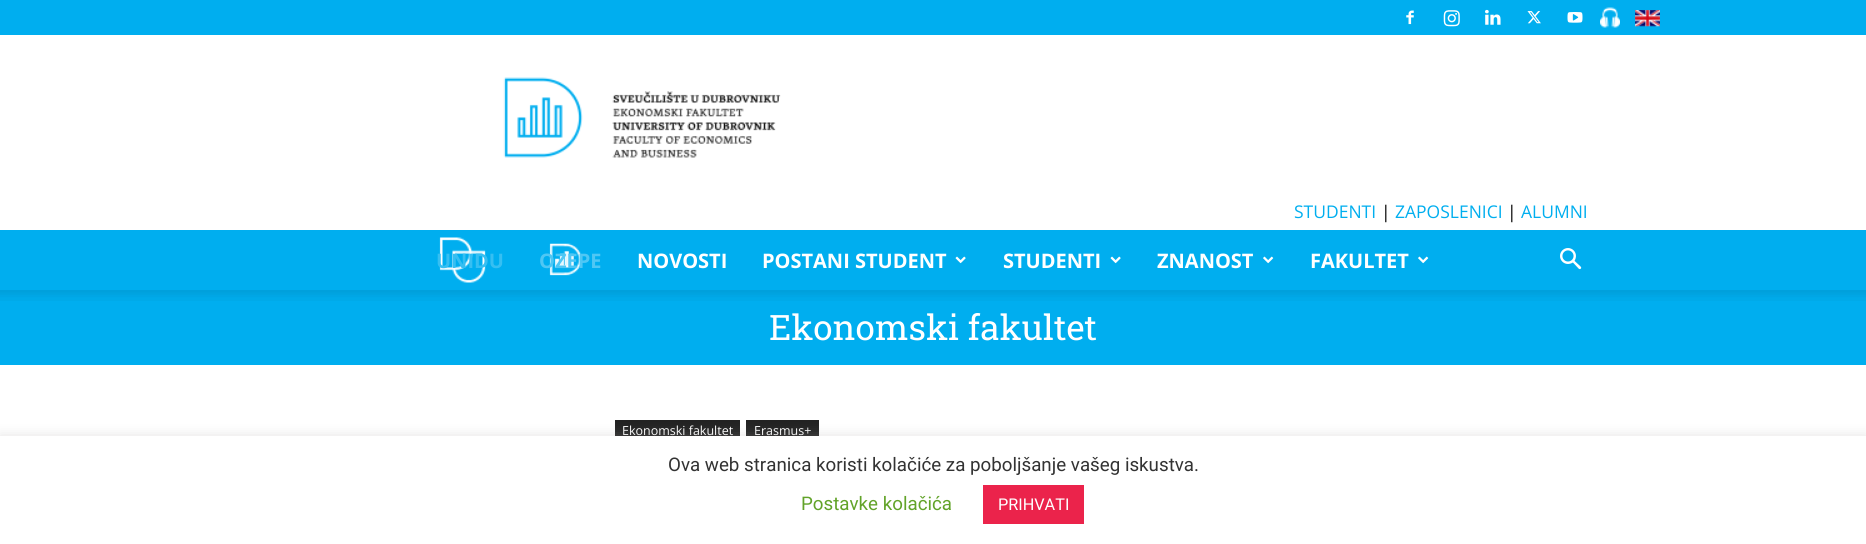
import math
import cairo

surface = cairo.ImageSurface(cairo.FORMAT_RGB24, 1866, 544)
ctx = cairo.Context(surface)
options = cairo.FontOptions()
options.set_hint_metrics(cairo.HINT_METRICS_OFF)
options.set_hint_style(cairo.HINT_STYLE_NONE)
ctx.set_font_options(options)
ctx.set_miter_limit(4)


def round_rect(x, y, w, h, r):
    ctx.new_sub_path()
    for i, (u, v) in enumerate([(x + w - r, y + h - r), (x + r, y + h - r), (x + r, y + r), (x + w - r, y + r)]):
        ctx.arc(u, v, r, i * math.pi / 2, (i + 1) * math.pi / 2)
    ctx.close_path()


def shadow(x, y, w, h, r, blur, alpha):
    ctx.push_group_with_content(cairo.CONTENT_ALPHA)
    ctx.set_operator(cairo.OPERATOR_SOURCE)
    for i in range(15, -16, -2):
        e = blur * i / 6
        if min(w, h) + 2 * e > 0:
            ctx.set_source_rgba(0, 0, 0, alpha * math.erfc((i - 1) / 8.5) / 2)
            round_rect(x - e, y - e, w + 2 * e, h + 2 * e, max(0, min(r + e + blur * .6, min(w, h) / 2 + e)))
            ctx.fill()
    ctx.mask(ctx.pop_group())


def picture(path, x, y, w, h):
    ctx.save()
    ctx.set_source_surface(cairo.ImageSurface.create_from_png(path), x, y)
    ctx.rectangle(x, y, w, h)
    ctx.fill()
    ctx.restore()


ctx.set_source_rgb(1, 1, 1)
ctx.paint()
ctx.set_source_rgb(0, 0.682, 0.937)
ctx.rectangle(0, 0, 1866, 35)
ctx.fill()
picture("img1.png", 1406, 10, 8, 15)
picture("img2.png", 1443, 10, 17, 17)
picture("img3.png", 1485, 9, 16, 16)
picture("img4.png", 1527, 11, 14, 13)
picture("img5.png", 1567, 12, 16, 11)
picture("img6.png", 1600, 7, 20, 21)
picture("img7.png", 1635, 10, 25, 17)
picture("img8.png", 503, 77, 278, 81)
ctx.select_font_face("Open Sans")
ctx.set_font_size(17.5)
ctx.move_to(1294, 218)
ctx.show_text("STUDENTI")
ctx.set_source_rgb(0, 0, 0)
ctx.move_to(1381, 218)
ctx.show_text("|")
ctx.set_source_rgb(0, 0.682, 0.937)
ctx.move_to(1395, 218)
ctx.show_text("ZAPOSLENICI")
ctx.set_source_rgb(0, 0, 0)
ctx.move_to(1507, 218)
ctx.show_text("|")
ctx.set_source_rgb(0, 0.682, 0.937)
ctx.move_to(1521, 218)
ctx.show_text("ALUMNI")
ctx.rectangle(0, 230, 1866, 135)
ctx.fill()
picture("img9.png", 439, 237, 47, 46)
ctx.select_font_face("Open Sans", cairo.FONT_SLANT_NORMAL, cairo.FONT_WEIGHT_BOLD)
ctx.set_font_size(20)
ctx.set_source_rgb(0.212, 0.749, 0.949)
ctx.move_to(436, 268)
ctx.show_text("UNIDU")
picture("img10.png", 549, 243, 33, 33)
ctx.set_source_rgb(0.31, 0.78, 0.957)
ctx.move_to(539, 268)
ctx.show_text("OZEPE")
ctx.set_source_rgb(1, 1, 1)
ctx.move_to(637, 268)
ctx.show_text("NOVOSTI")
ctx.move_to(762, 268)
ctx.show_text("POSTANI STUDENT")
picture("img11.png", 955, 256, 11, 8)
ctx.move_to(1003, 268)
ctx.show_text("STUDENTI")
picture("img11.png", 1110, 256, 11, 8)
ctx.move_to(1157, 268)
ctx.show_text("ZNANOST")
picture("img12.png", 1263, 256, 11, 8)
ctx.move_to(1310, 268)
ctx.show_text("FAKULTET")
picture("img12.png", 1418, 256, 11, 8)
picture("img13.png", 1560, 248, 22, 22)
picture("img14.png", 0, 290, 1866, 11)
ctx.select_font_face("Roboto Slab")
ctx.set_font_size(35)
ctx.move_to(769, 340)
ctx.show_text("Ekonomski fakultet")
ctx.set_source_rgb(0.133, 0.133, 0.133)
ctx.rectangle(615, 420, 125, 16)
ctx.fill()
ctx.select_font_face("Open Sans")
ctx.set_font_size(12.5)
ctx.set_source_rgb(1, 1, 1)
ctx.move_to(622, 435)
ctx.show_text("Ekonomski fakultet")
ctx.set_source_rgb(0.133, 0.133, 0.133)
ctx.rectangle(746, 420, 73, 16)
ctx.fill()
ctx.set_source_rgb(1, 1, 1)
ctx.move_to(754, 435)
ctx.show_text("Erasmus+")
ctx.set_source_rgb(0.675, 0.671, 0.671)
shadow(0, 435, 1866, 109, 0, 6, 0.3)
ctx.set_source_rgb(1, 1, 1)
ctx.rectangle(0, 436, 1866, 108)
ctx.fill()
ctx.select_font_face("Roboto")
ctx.set_font_size(18.75)
ctx.set_source_rgb(0.2, 0.2, 0.2)
ctx.move_to(668, 471)
ctx.show_text("Ova web stranica koristi kolačiće za poboljšanje vašeg iskustva.")
ctx.set_source_rgb(0.384, 0.639, 0.161)
ctx.move_to(801, 510)
ctx.show_text("Postavke kolačića")
ctx.set_source_rgb(0.918, 0.137, 0.294)
ctx.rectangle(983, 485, 101, 39)
ctx.fill()
ctx.set_font_size(16.25)
ctx.set_source_rgb(1, 1, 1)
ctx.move_to(998, 510)
ctx.show_text("PRIHVATI")
surface.write_to_png("page.png")
